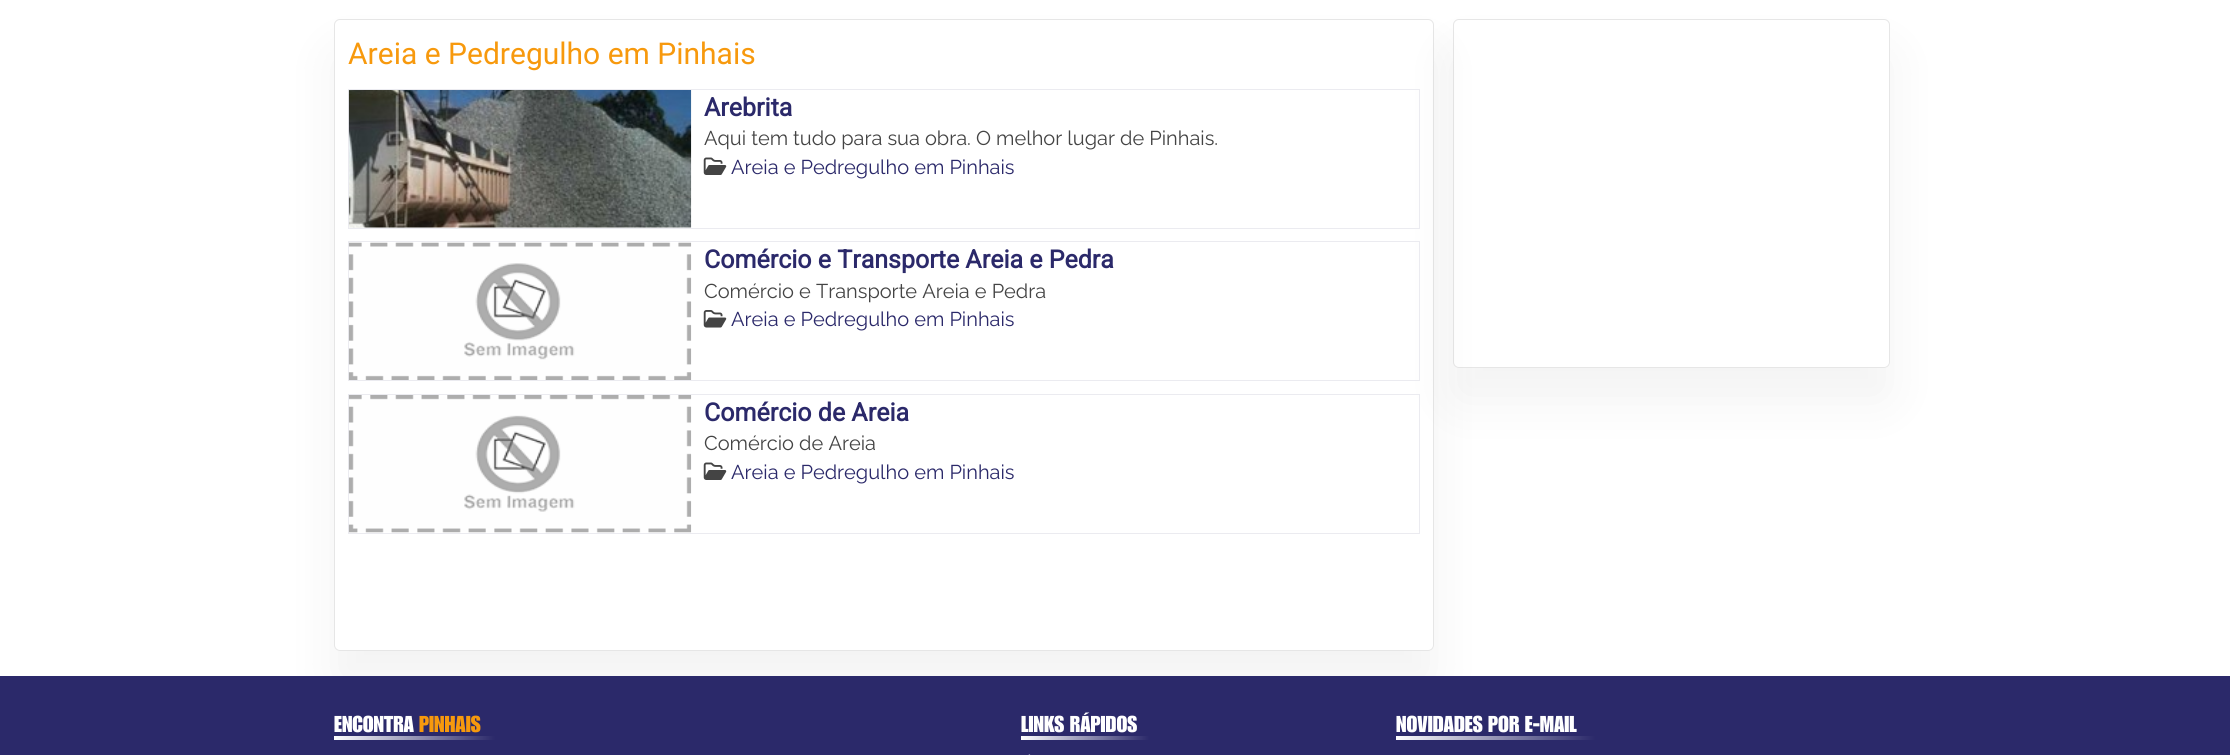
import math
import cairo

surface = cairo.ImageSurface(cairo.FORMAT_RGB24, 2230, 755)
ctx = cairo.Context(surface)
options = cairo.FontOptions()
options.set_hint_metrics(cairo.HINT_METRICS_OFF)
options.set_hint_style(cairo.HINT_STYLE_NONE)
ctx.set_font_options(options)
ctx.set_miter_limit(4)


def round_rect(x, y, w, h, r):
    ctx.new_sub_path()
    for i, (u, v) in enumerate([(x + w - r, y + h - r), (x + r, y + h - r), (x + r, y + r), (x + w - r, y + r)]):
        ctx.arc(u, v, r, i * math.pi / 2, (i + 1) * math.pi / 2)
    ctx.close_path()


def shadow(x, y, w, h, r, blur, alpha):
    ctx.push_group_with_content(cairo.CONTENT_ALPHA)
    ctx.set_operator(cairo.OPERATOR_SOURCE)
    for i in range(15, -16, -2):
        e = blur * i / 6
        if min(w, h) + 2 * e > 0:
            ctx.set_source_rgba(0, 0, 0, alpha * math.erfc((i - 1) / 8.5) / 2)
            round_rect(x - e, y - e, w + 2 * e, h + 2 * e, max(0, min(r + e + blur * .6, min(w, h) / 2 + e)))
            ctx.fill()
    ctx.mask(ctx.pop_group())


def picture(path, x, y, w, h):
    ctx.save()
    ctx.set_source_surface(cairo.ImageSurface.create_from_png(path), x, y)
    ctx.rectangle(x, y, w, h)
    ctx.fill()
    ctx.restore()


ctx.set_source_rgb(1, 1, 1)
ctx.paint()
ctx.save()
ctx.set_fill_rule(cairo.FILL_RULE_EVEN_ODD)
ctx.new_path()
ctx.move_to(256, 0)
ctx.line_to(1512, 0)
ctx.line_to(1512, 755)
ctx.line_to(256, 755)
ctx.close_path()
ctx.move_to(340, 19)
ctx.line_to(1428, 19)
ctx.curve_to(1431.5, 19, 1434, 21.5, 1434, 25)
ctx.line_to(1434, 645)
ctx.curve_to(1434, 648.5, 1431.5, 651, 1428, 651)
ctx.line_to(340, 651)
ctx.curve_to(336.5, 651, 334, 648.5, 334, 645)
ctx.line_to(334, 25)
ctx.curve_to(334, 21.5, 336.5, 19, 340, 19)
ctx.close_path()
ctx.clip()
ctx.set_source_rgb(0, 0, 0)
shadow(334, 53, 1100, 632, 6, 25.5, 0.05)
ctx.restore()
round_rect(334.5, 19.5, 1099, 631, 5.5)
ctx.set_source_rgba(0, 0, 0, 0.1)
ctx.set_line_width(1)
ctx.stroke()
ctx.select_font_face("Roboto")
ctx.set_font_size(30)
ctx.set_source_rgb(0.965, 0.6, 0.051)
ctx.move_to(348, 64)
ctx.show_text("Areia e Pedregulho em Pinhais")
ctx.save()
ctx.set_fill_rule(cairo.FILL_RULE_EVEN_ODD)
ctx.new_path()
ctx.move_to(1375, 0)
ctx.line_to(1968, 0)
ctx.line_to(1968, 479)
ctx.line_to(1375, 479)
ctx.close_path()
ctx.move_to(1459, 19)
ctx.line_to(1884, 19)
ctx.curve_to(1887.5, 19, 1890, 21.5, 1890, 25)
ctx.line_to(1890, 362)
ctx.curve_to(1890, 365.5, 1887.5, 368, 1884, 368)
ctx.line_to(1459, 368)
ctx.curve_to(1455.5, 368, 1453, 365.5, 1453, 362)
ctx.line_to(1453, 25)
ctx.curve_to(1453, 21.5, 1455.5, 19, 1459, 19)
ctx.close_path()
ctx.clip()
ctx.set_source_rgb(0, 0, 0)
shadow(1453, 53, 437, 348, 6, 25.5, 0.05)
ctx.restore()
ctx.rectangle(348.5, 89.5, 1071, 139)
ctx.set_source_rgb(0.918, 0.918, 0.941)
ctx.stroke()
picture("img1.png", 348, 90, 344, 138)
ctx.select_font_face("Roboto", cairo.FONT_SLANT_NORMAL, cairo.FONT_WEIGHT_BOLD)
ctx.set_font_size(25)
ctx.set_source_rgb(0.169, 0.161, 0.416)
ctx.move_to(704, 116)
ctx.show_text("Arebrita")
ctx.select_font_face("Raleway")
ctx.set_font_size(20)
ctx.set_source_rgb(0.267, 0.267, 0.267)
ctx.move_to(704, 145)
ctx.show_text("Aqui tem tudo para sua obra. O melhor lugar de Pinhais.")
picture("img2.png", 703, 157, 24, 18)
ctx.set_source_rgb(0.169, 0.161, 0.416)
ctx.move_to(731, 174)
ctx.show_text("Areia e Pedregulho em Pinhais")
ctx.rectangle(348.5, 241.5, 1071, 139)
ctx.set_source_rgb(0.918, 0.918, 0.941)
ctx.stroke()
picture("img3.png", 348, 242, 344, 138)
ctx.select_font_face("Roboto", cairo.FONT_SLANT_NORMAL, cairo.FONT_WEIGHT_BOLD)
ctx.set_font_size(25)
ctx.set_source_rgb(0.169, 0.161, 0.416)
ctx.move_to(704, 268)
ctx.show_text("Comércio e Transporte Areia e Pedra")
ctx.select_font_face("Raleway")
ctx.set_font_size(20)
ctx.set_source_rgb(0.267, 0.267, 0.267)
ctx.move_to(704, 298)
ctx.show_text("Comércio e Transporte Areia e Pedra")
picture("img4.png", 703, 310, 24, 18)
ctx.set_source_rgb(0.169, 0.161, 0.416)
ctx.move_to(731, 326)
ctx.show_text("Areia e Pedregulho em Pinhais")
ctx.rectangle(348.5, 394.5, 1071, 139)
ctx.set_source_rgb(0.918, 0.918, 0.941)
ctx.stroke()
picture("img5.png", 348, 395, 344, 138)
ctx.select_font_face("Roboto", cairo.FONT_SLANT_NORMAL, cairo.FONT_WEIGHT_BOLD)
ctx.set_font_size(25)
ctx.set_source_rgb(0.169, 0.161, 0.416)
ctx.move_to(704, 421)
ctx.show_text("Comércio de Areia")
ctx.select_font_face("Raleway")
ctx.set_font_size(20)
ctx.set_source_rgb(0.267, 0.267, 0.267)
ctx.move_to(704, 450)
ctx.show_text("Comércio de Areia")
picture("img2.png", 703, 462, 24, 18)
ctx.set_source_rgb(0.169, 0.161, 0.416)
ctx.move_to(731, 479)
ctx.show_text("Areia e Pedregulho em Pinhais")
round_rect(1453.5, 19.5, 436, 348, 5.5)
ctx.set_source_rgba(0, 0, 0, 0.1)
ctx.stroke()
ctx.set_source_rgb(0.169, 0.161, 0.416)
ctx.rectangle(0, 676, 2230, 79)
ctx.fill()
ctx.select_font_face("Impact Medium")
ctx.set_font_size(22.5)
ctx.set_source_rgb(1, 1, 1)
ctx.move_to(334, 732)
ctx.show_text("ENCONTRA")
ctx.set_source_rgb(0.965, 0.6, 0.051)
ctx.move_to(419, 732)
ctx.show_text("PINHAIS")
gradient = cairo.LinearGradient(334, 738, 495, 738)
gradient.add_color_stop_rgba(0, 1, 1, 1, 1)
gradient.add_color_stop_rgba(1, 0.169, 0.161, 0.416, 1)
ctx.set_source(gradient)
ctx.rectangle(334, 736, 161, 4)
ctx.fill()
ctx.set_source_rgb(1, 1, 1)
ctx.move_to(1021, 732)
ctx.show_text("LINKS RÁPIDOS")
gradient = cairo.LinearGradient(1021, 738, 1149, 738)
gradient.add_color_stop_rgba(0, 1, 1, 1, 1)
gradient.add_color_stop_rgba(1, 0.169, 0.161, 0.416, 1)
ctx.set_source(gradient)
ctx.rectangle(1021, 736, 128, 4)
ctx.fill()
picture("img6.png", 1028, 754, 3, 1)
ctx.set_source_rgb(1, 1, 1)
ctx.move_to(1396, 732)
ctx.show_text("NOVIDADES POR E-MAIL")
gradient = cairo.LinearGradient(1396, 738, 1595, 738)
gradient.add_color_stop_rgba(0, 1, 1, 1, 1)
gradient.add_color_stop_rgba(1, 0.169, 0.161, 0.416, 1)
ctx.set_source(gradient)
ctx.rectangle(1396, 736, 199, 4)
ctx.fill()
surface.write_to_png("page.png")
